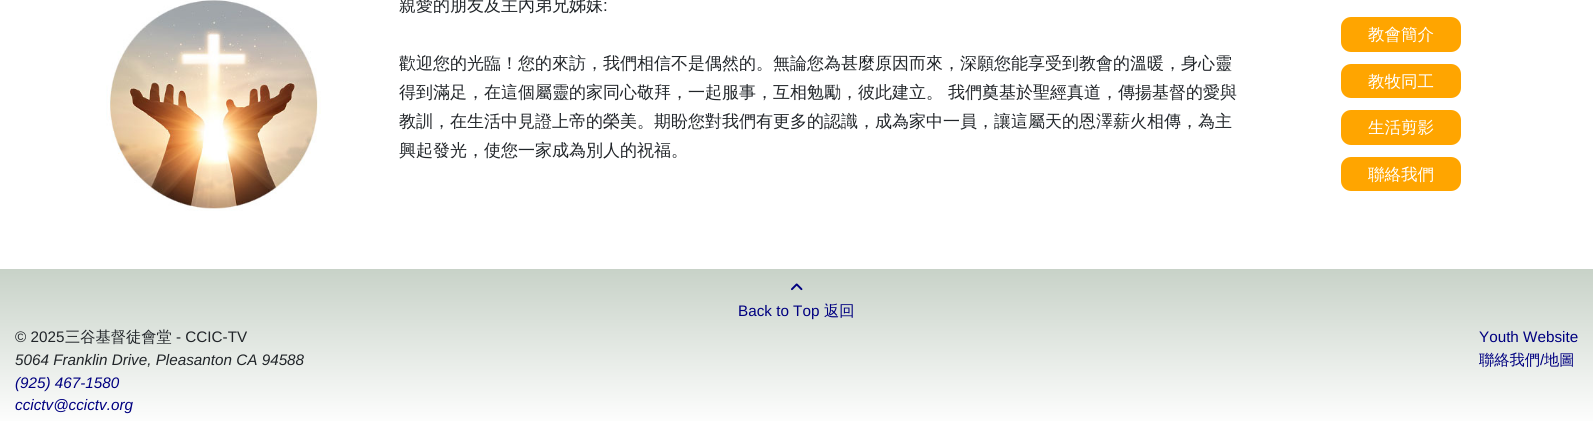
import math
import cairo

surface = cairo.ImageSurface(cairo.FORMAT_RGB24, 1593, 428)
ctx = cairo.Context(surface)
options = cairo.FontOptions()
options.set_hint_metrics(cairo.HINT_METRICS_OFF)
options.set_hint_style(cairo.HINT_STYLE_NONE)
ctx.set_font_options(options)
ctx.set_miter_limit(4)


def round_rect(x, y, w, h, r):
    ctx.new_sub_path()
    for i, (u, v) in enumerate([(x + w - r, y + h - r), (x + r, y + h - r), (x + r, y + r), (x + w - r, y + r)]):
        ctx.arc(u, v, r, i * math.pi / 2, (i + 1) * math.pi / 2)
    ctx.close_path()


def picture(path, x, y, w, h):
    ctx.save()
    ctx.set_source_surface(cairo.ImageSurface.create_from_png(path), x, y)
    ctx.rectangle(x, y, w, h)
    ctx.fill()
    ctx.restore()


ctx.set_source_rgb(1, 1, 1)
ctx.paint()
picture("img1.png", 106, 0, 215, 211)
ctx.select_font_face("WenQuanYi Zen Hei Medium")
ctx.set_font_size(17)
ctx.set_source_rgb(0.129, 0.145, 0.161)
ctx.move_to(399, 11)
ctx.show_text("親愛的朋友及主內弟兄姊妹")
ctx.select_font_face("Liberation Sans")
ctx.move_to(603, 11)
ctx.show_text(":")
ctx.select_font_face("WenQuanYi Zen Hei Medium")
ctx.move_to(399, 69)
ctx.show_text("歡迎您的光臨！您的來訪，我們相信不是偶然的。無論您為甚麼原因而來，深願您能享受到教會的溫暖，身心靈")
ctx.move_to(399, 98)
ctx.show_text("得到滿足，在這個屬靈的家同心敬拜，一起服事，互相勉勵，彼此建立。")
ctx.move_to(948, 98)
ctx.show_text("我們奠基於聖經真道，傳揚基督的愛與")
ctx.move_to(399, 127)
ctx.show_text("教訓，在生活中見證上帝的榮美。期盼您對我們有更多的認識，成為家中一員，讓這屬天的恩澤薪火相傳，為主")
ctx.move_to(399, 156)
ctx.show_text("興起發光，使您一家成為別人的祝福。")
ctx.set_source_rgb(1, 0.647, 0)
round_rect(1341, 17, 120, 35, 10)
ctx.fill()
ctx.set_font_size(16.5)
ctx.set_source_rgb(1, 1, 1)
ctx.move_to(1368, 40)
ctx.show_text("教會簡介")
ctx.set_source_rgb(1, 0.647, 0)
round_rect(1341, 64, 120, 34, 10)
ctx.fill()
ctx.set_source_rgb(1, 1, 1)
ctx.move_to(1368, 87)
ctx.show_text("教牧同工")
ctx.set_source_rgb(1, 0.647, 0)
round_rect(1341, 110, 120, 35, 10)
ctx.fill()
ctx.set_source_rgb(1, 1, 1)
ctx.move_to(1368, 133)
ctx.show_text("生活剪影")
ctx.set_source_rgb(1, 0.647, 0)
round_rect(1341, 157, 120, 34, 10)
ctx.fill()
ctx.set_source_rgb(1, 1, 1)
ctx.move_to(1368, 180)
ctx.show_text("聯絡我們")
gradient = cairo.LinearGradient(797, 269, 797, 428)
gradient.add_color_stop_rgba(0, 0.784, 0.824, 0.784, 1)
gradient.add_color_stop_rgba(1, 1, 1, 1, 1)
ctx.set_source(gradient)
ctx.rectangle(0, 269, 1593, 152)
ctx.fill()
picture("img2.png", 791, 283, 12, 8)
ctx.select_font_face("Liberation Sans")
ctx.set_font_size(15.25)
ctx.set_source_rgb(0, 0, 0.502)
ctx.move_to(738, 316)
ctx.show_text("Back to Top")
ctx.select_font_face("WenQuanYi Zen Hei Medium")
ctx.move_to(824, 316)
ctx.show_text("返回")
ctx.select_font_face("Liberation Sans")
ctx.set_source_rgb(0.129, 0.145, 0.161)
ctx.move_to(15, 342)
ctx.show_text("© 2025")
ctx.select_font_face("WenQuanYi Zen Hei Medium")
ctx.move_to(65, 342)
ctx.show_text("三谷基督徒會堂")
ctx.select_font_face("Liberation Sans")
ctx.move_to(176, 342)
ctx.show_text("- CCIC-TV")
ctx.select_font_face("Liberation Sans", cairo.FONT_SLANT_ITALIC)
ctx.move_to(15, 365)
ctx.show_text("5064 Franklin Drive, Pleasanton CA 94588")
ctx.set_source_rgb(0, 0, 0.502)
ctx.move_to(15, 388)
ctx.show_text("(925) 467-1580")
ctx.move_to(15, 410)
ctx.show_text("ccictv@ccictv.org")
ctx.select_font_face("Liberation Sans")
ctx.move_to(1479, 342)
ctx.show_text("Youth Website")
ctx.select_font_face("WenQuanYi Zen Hei Medium")
ctx.move_to(1479, 365)
ctx.show_text("聯絡我們")
ctx.select_font_face("Liberation Sans")
ctx.move_to(1540, 365)
ctx.show_text("/")
ctx.select_font_face("WenQuanYi Zen Hei Medium")
ctx.move_to(1544, 365)
ctx.show_text("地圖")
surface.write_to_png("page.png")
